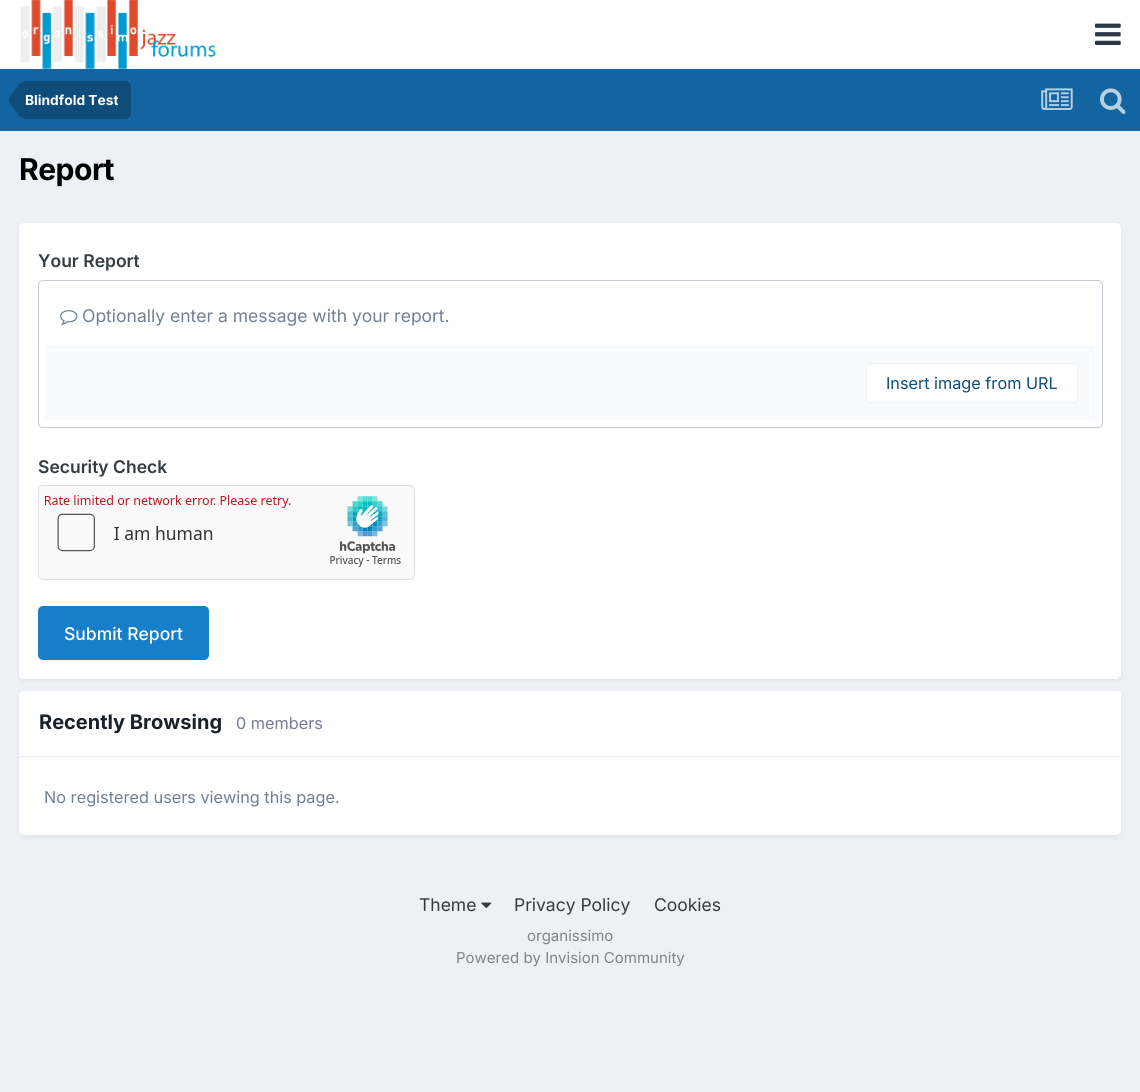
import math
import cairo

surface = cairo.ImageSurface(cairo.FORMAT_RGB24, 1140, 1092)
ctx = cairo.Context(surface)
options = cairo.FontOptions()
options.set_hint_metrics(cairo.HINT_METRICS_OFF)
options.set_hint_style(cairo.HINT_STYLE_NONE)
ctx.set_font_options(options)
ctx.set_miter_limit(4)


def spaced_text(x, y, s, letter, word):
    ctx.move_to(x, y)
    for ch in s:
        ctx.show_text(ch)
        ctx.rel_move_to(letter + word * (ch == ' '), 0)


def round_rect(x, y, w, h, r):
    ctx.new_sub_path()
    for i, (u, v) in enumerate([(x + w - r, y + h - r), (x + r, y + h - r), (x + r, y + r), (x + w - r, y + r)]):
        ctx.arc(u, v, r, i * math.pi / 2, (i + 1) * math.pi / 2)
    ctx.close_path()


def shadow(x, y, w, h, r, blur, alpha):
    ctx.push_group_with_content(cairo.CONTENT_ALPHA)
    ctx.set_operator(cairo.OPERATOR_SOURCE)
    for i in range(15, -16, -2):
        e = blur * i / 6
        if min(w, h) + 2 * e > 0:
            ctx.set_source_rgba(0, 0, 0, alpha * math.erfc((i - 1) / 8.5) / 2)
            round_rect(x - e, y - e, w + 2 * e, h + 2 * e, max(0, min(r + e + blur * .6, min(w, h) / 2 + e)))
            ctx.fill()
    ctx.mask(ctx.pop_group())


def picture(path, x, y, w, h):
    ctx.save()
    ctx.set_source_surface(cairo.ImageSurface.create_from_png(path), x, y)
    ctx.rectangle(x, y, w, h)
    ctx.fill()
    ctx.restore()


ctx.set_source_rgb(0.929, 0.941, 0.957)
ctx.paint()
ctx.set_source_rgb(1, 1, 1)
ctx.rectangle(0, 0, 1140, 69)
ctx.fill()
picture("img1.png", 20, 0, 196, 69)
picture("img2.png", 1095, 23, 26, 22)
ctx.set_source_rgb(0.071, 0.396, 0.631)
ctx.rectangle(0, 69, 1140, 62)
ctx.fill()
ctx.set_source_rgb(0.055, 0.298, 0.475)
ctx.new_path()
ctx.move_to(25, 81)
ctx.line_to(125, 81)
ctx.curve_to(128.5, 81, 131, 83.5, 131, 87)
ctx.line_to(131, 113)
ctx.curve_to(131, 116.5, 128.5, 119, 125, 119)
ctx.line_to(25, 119)
ctx.close_path()
ctx.fill()
ctx.new_path()
ctx.move_to(25, 100)
ctx.line_to(25, 118.5)
ctx.curve_to(19.5, 118.5, 16.5, 112, 14, 108.5)
ctx.curve_to(12, 106, 9, 103.5, 9, 100)
ctx.close_path()
ctx.move_to(25, 100)
ctx.line_to(9, 100)
ctx.curve_to(9, 96.5, 12, 94, 14, 91.5)
ctx.curve_to(16.5, 88, 19.5, 81.5, 25, 81.5)
ctx.close_path()
ctx.fill()
ctx.select_font_face("Inter", cairo.FONT_SLANT_NORMAL, cairo.FONT_WEIGHT_BOLD)
ctx.set_font_size(13.75)
ctx.set_source_rgb(1, 1, 1)
ctx.move_to(25, 105)
ctx.show_text("Blindfold Test")
picture("img3.png", 1041, 88, 32, 22)
picture("img4.png", 1100, 88, 26, 26)
ctx.set_font_size(30)
ctx.set_source_rgb(0, 0, 0)
spaced_text(19, 180, "Report", -0.5, 0)
ctx.set_source_rgb(0.176, 0.216, 0.282)
shadow(20, 226, 1100, 454, 4, 2.5, 0.1)
ctx.set_source_rgb(1, 1, 1)
round_rect(19, 223, 1102, 456, 5)
ctx.fill()
ctx.select_font_face("Inter SemiBold")
ctx.set_font_size(17.5)
ctx.set_source_rgb(0.208, 0.235, 0.255)
ctx.move_to(38, 267)
ctx.show_text("Your Report")
round_rect(38.5, 280.5, 1064, 147, 4.5)
ctx.set_source_rgb(0.776, 0.8, 0.835)
ctx.set_line_width(1)
ctx.stroke()
picture("img5.png", 60, 310, 18, 15)
ctx.select_font_face("Inter")
ctx.set_source_rgb(0.443, 0.502, 0.588)
ctx.move_to(82, 322)
ctx.show_text("Optionally enter a message with your report.")
ctx.set_source_rgb(0.969, 0.98, 0.988)
ctx.rectangle(45, 345, 1050, 75)
ctx.fill()
ctx.set_source_rgb(1, 1, 1)
round_rect(866, 363, 212, 40, 5)
ctx.fill()
round_rect(866.5, 363.5, 211, 39, 4.5)
ctx.set_source_rgba(0.055, 0.298, 0.475, 0.07)
ctx.stroke()
ctx.set_font_size(16.25)
ctx.set_source_rgb(0.055, 0.298, 0.475)
ctx.move_to(886, 389)
ctx.show_text("Insert image from URL")
ctx.select_font_face("Inter SemiBold")
ctx.set_font_size(17.5)
ctx.set_source_rgb(0.208, 0.235, 0.255)
ctx.move_to(38, 473)
ctx.show_text("Security Check")
picture("img6.png", 37, 485, 378, 95)
ctx.set_source_rgb(0.09, 0.494, 0.788)
round_rect(38, 606, 171, 54, 5)
ctx.fill()
ctx.select_font_face("Inter Medium")
ctx.set_source_rgb(1, 1, 1)
ctx.move_to(64, 640)
ctx.show_text("Submit Report")
ctx.set_source_rgb(0.176, 0.216, 0.282)
shadow(20, 695, 1100, 141, 4, 2.5, 0.1)
ctx.set_source_rgb(1, 1, 1)
round_rect(19, 691, 1102, 144, 5)
ctx.fill()
ctx.new_path()
ctx.move_to(24, 691)
ctx.line_to(1116, 691)
ctx.curve_to(1119, 691, 1121, 693, 1121, 696)
ctx.line_to(1121, 758)
ctx.line_to(19, 758)
ctx.line_to(19, 696)
ctx.curve_to(19, 693, 21, 691, 24, 691)
ctx.close_path()
ctx.fill()
ctx.set_source_rgb(0.918, 0.925, 0.937)
ctx.rectangle(19, 756, 1102, 1)
ctx.fill()
ctx.select_font_face("Inter", cairo.FONT_SLANT_NORMAL, cairo.FONT_WEIGHT_BOLD)
ctx.set_font_size(20)
ctx.set_source_rgb(0.102, 0.125, 0.173)
ctx.move_to(39, 729)
ctx.show_text("Recently Browsing")
ctx.select_font_face("Inter")
ctx.set_font_size(16.25)
ctx.set_source_rgb(0.443, 0.502, 0.588)
ctx.move_to(236, 729)
ctx.show_text("0 members")
ctx.move_to(44, 803)
ctx.show_text("No registered users viewing this page.")
ctx.set_font_size(17.5)
ctx.set_source_rgb(0.208, 0.235, 0.255)
ctx.move_to(419, 911)
ctx.show_text("Theme")
picture("img7.png", 481, 902, 11, 7)
ctx.move_to(514, 911)
ctx.show_text("Privacy Policy")
ctx.move_to(654, 911)
ctx.show_text("Cookies")
ctx.set_font_size(15)
ctx.set_source_rgb(0.498, 0.518, 0.537)
ctx.move_to(527, 941)
ctx.show_text("organissimo")
ctx.move_to(456, 963)
ctx.show_text("Powered by Invision Community")
surface.write_to_png("page.png")
